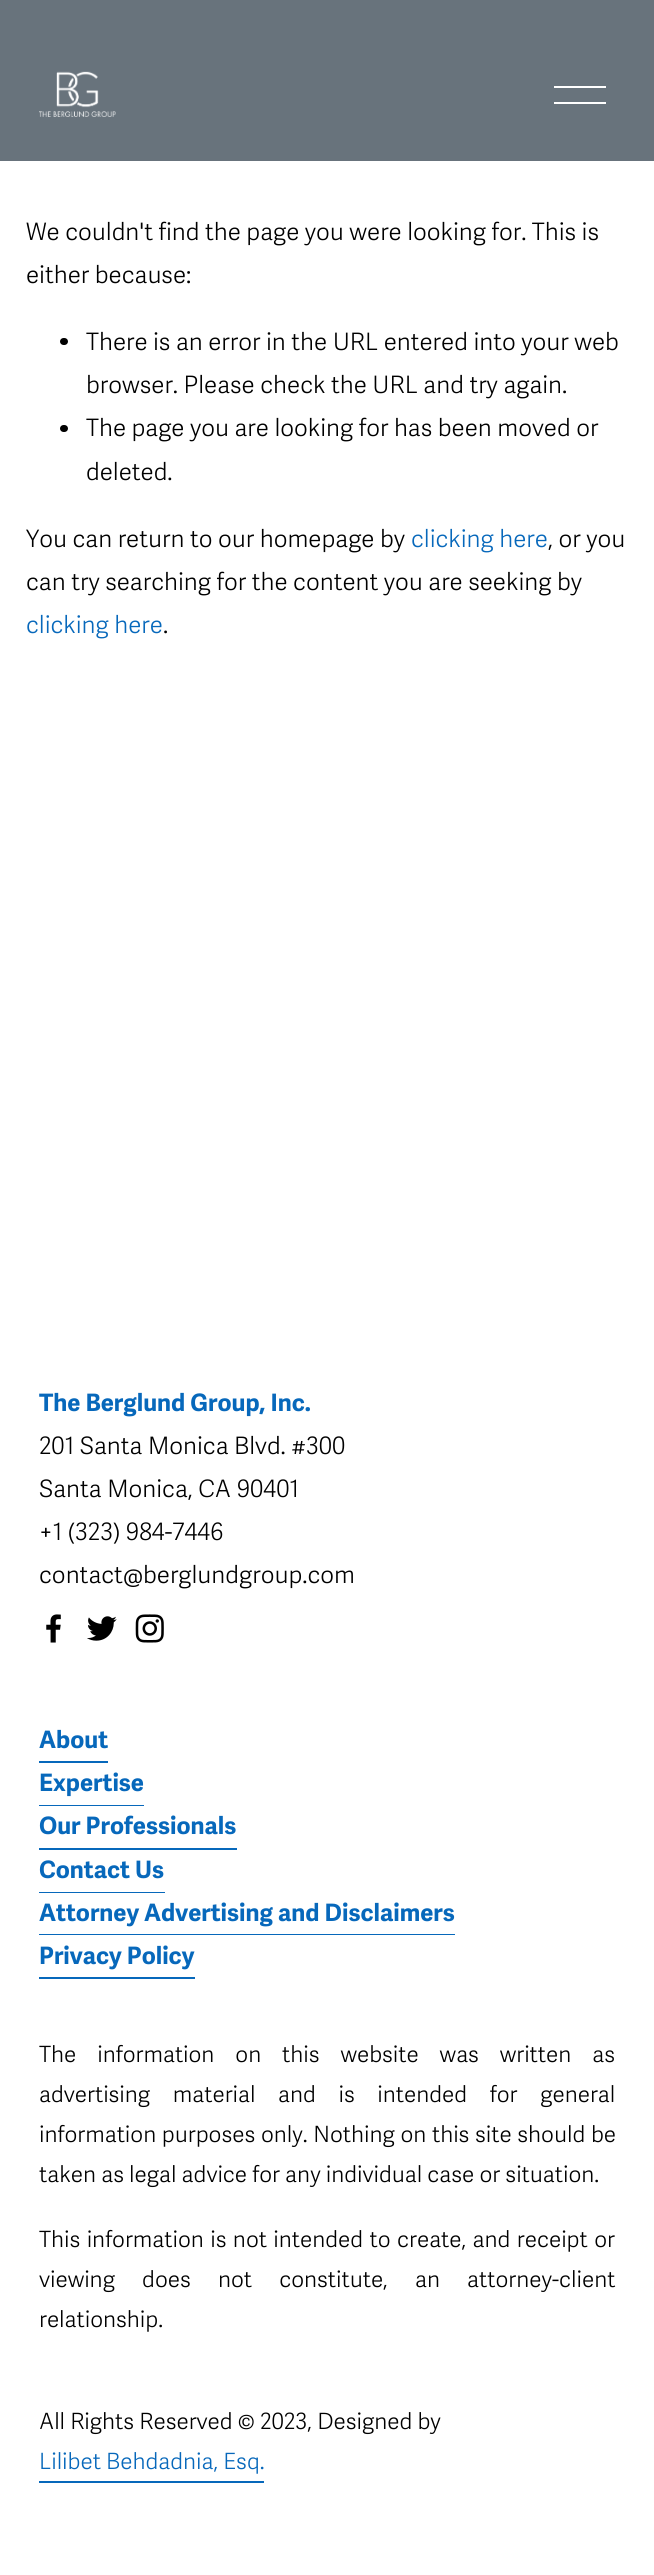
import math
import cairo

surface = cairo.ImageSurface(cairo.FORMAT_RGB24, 654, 2575)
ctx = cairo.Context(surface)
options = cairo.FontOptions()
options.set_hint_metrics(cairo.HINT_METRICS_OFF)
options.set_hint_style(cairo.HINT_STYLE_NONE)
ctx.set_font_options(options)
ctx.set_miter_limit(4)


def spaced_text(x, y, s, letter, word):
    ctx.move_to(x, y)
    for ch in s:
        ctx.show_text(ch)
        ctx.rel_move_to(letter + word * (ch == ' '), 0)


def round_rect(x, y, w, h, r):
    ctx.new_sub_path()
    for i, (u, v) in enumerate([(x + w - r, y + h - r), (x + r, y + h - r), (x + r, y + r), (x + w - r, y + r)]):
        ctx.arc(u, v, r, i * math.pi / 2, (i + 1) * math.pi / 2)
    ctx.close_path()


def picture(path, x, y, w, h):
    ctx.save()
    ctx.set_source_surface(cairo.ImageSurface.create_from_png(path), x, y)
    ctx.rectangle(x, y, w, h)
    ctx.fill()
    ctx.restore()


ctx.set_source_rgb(1, 1, 1)
ctx.paint()
ctx.set_source_rgb(0.408, 0.451, 0.486)
ctx.rectangle(0, 0, 654, 161)
ctx.fill()
picture("img1.png", 39, 71, 77, 46)
ctx.set_source_rgb(1, 1, 1)
ctx.rectangle(554, 86, 52, 2)
ctx.fill()
ctx.rectangle(554, 102, 52, 2)
ctx.fill()
ctx.select_font_face("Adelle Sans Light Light")
ctx.set_font_size(24)
ctx.set_source_rgb(0, 0, 0)
ctx.move_to(26, 240)
ctx.show_text("We couldn't find the page you were looking for. This is")
ctx.move_to(26, 283)
ctx.show_text("either because:")
round_rect(60, 338, 8, 7, 3.5)
ctx.fill()
ctx.move_to(86, 350)
ctx.show_text("There is an error in the URL entered into your web")
ctx.move_to(86, 393)
ctx.show_text("browser. Please check the URL and try again.")
round_rect(60, 425, 8, 7, 3.5)
ctx.fill()
ctx.move_to(86, 436)
ctx.show_text("The page you are looking for has been moved or")
ctx.move_to(86, 480)
ctx.show_text("deleted.")
ctx.move_to(26, 547)
ctx.show_text("You can return to our homepage by")
ctx.set_source_rgb(0.031, 0.408, 0.733)
ctx.move_to(411, 547)
ctx.show_text("clicking here")
ctx.set_source_rgb(0, 0, 0)
ctx.move_to(548, 547)
ctx.show_text(", or you")
ctx.move_to(26, 590)
ctx.show_text("can try searching for the content you are seeking by")
ctx.set_source_rgb(0.031, 0.408, 0.733)
ctx.move_to(26, 633)
ctx.show_text("clicking here")
ctx.set_source_rgb(0, 0, 0)
ctx.move_to(163, 633)
ctx.show_text(".")
ctx.select_font_face("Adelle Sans", cairo.FONT_SLANT_NORMAL, cairo.FONT_WEIGHT_BOLD)
ctx.set_source_rgb(0.031, 0.408, 0.733)
ctx.move_to(39, 1411)
ctx.show_text("The Berglund Group, Inc.")
ctx.select_font_face("Adelle Sans Light Light")
ctx.set_source_rgb(0, 0, 0)
ctx.move_to(39, 1454)
ctx.show_text("201 Santa Monica Blvd. #300")
ctx.move_to(39, 1497)
ctx.show_text("Santa Monica, CA 90401")
ctx.move_to(39, 1540)
ctx.show_text("+1 (323) 984-7446")
ctx.move_to(39, 1583)
ctx.show_text("contact@berglundgroup.com")
picture("img2.png", 46, 1614, 15, 29)
picture("img3.png", 87, 1616, 30, 25)
picture("img4.png", 135, 1614, 29, 29)
ctx.set_source_rgb(0.031, 0.408, 0.733)
ctx.rectangle(39, 1761, 69, 2)
ctx.fill()
ctx.select_font_face("Adelle Sans", cairo.FONT_SLANT_NORMAL, cairo.FONT_WEIGHT_BOLD)
ctx.move_to(39, 1748)
ctx.show_text("About")
ctx.rectangle(39, 1805, 105, 1)
ctx.fill()
ctx.move_to(39, 1791)
ctx.show_text("Expertise")
ctx.rectangle(39, 1848, 198, 2)
ctx.fill()
ctx.move_to(39, 1834)
ctx.show_text("Our Professionals")
ctx.rectangle(39, 1892, 126, 1)
ctx.fill()
ctx.move_to(39, 1878)
ctx.show_text("Contact Us")
ctx.rectangle(39, 1934, 416, 1)
ctx.fill()
ctx.move_to(39, 1921)
ctx.show_text("Attorney Advertising and Disclaimers")
ctx.rectangle(39, 1977, 156, 2)
ctx.fill()
ctx.move_to(39, 1964)
ctx.show_text("Privacy Policy")
ctx.select_font_face("Adelle Sans Light Light")
ctx.set_font_size(22.4)
ctx.set_source_rgb(0, 0, 0)
spaced_text(39, 2062, "The information on this website was written as", 0, 15.75)
spaced_text(39, 2102, "advertising material and is intended for general", 0, 17.5)
spaced_text(39, 2142, "information purposes only. Nothing on this site should be", 0, 0.5)
ctx.move_to(39, 2182)
ctx.show_text("taken as legal advice for any individual case or situation.")
spaced_text(39, 2247, "This information is not intended to create, and receipt or", 0, 1.25)
spaced_text(39, 2287, "viewing does not constitute, an attorney-client", 0, 22)
ctx.move_to(39, 2327)
ctx.show_text("relationship.")
ctx.move_to(39, 2429)
ctx.show_text("All Rights Reserved © 2023, Designed by")
ctx.set_source_rgb(0.031, 0.408, 0.733)
ctx.rectangle(39, 2481, 225, 2)
ctx.fill()
ctx.move_to(39, 2469)
ctx.show_text("Lilibet Behdadnia, Esq.")
surface.write_to_png("page.png")
